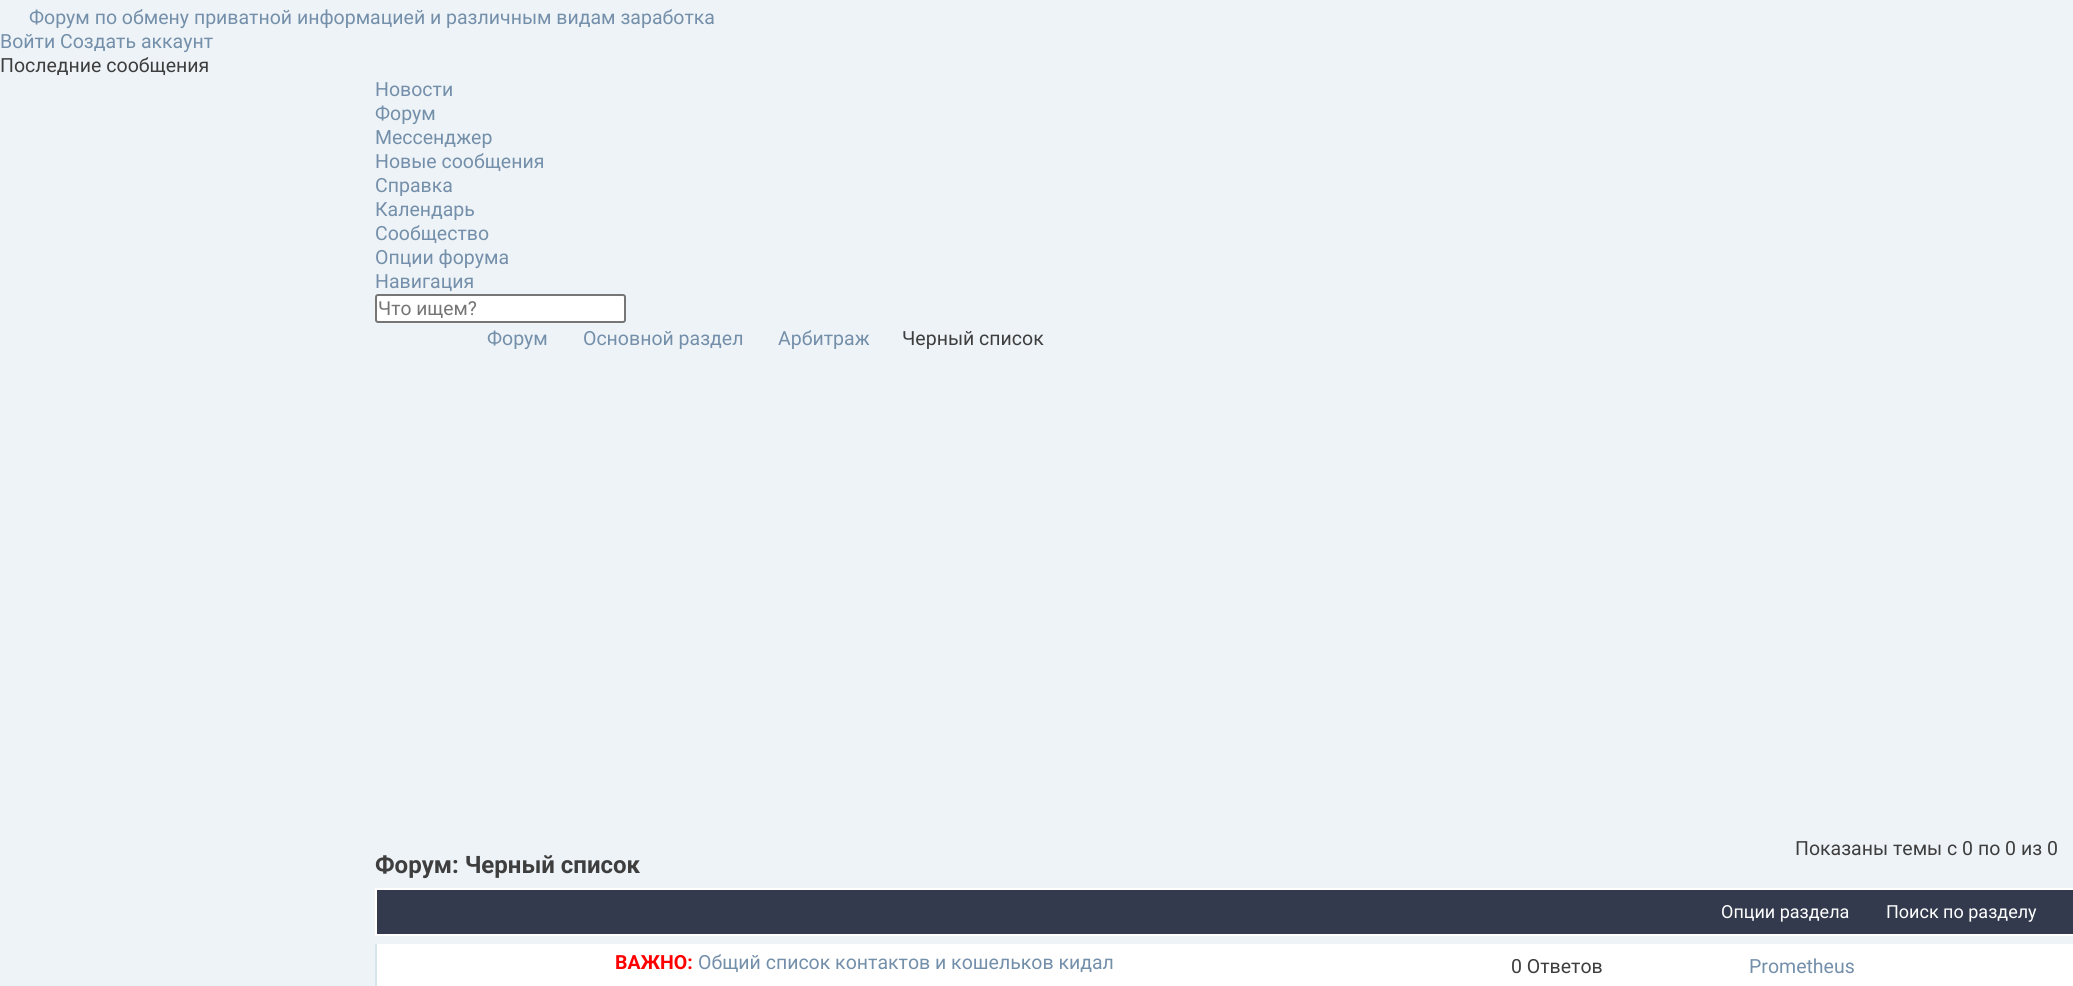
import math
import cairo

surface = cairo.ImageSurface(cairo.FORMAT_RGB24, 2073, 986)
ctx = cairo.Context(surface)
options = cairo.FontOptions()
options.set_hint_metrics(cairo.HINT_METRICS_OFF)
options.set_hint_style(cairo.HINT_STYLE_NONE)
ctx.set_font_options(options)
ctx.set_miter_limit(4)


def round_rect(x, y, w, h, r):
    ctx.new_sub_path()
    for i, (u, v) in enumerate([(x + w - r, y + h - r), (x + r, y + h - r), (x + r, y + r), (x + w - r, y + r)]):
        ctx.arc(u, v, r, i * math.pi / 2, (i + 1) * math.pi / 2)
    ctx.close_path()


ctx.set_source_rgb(0.933, 0.953, 0.965)
ctx.paint()
ctx.select_font_face("Roboto")
ctx.set_font_size(19.5)
ctx.set_source_rgb(0.455, 0.561, 0.667)
ctx.move_to(29, 24)
ctx.show_text("Форум по обмену приватной информацией и различным видам заработка")
ctx.move_to(0, 48)
ctx.show_text("Войти Создать аккаунт")
ctx.set_source_rgb(0.243, 0.243, 0.243)
ctx.move_to(0, 72)
ctx.show_text("Последние сообщения")
ctx.set_source_rgb(0.455, 0.561, 0.667)
ctx.move_to(375, 96)
ctx.show_text("Новости")
ctx.move_to(375, 120)
ctx.show_text("Форум")
ctx.move_to(375, 144)
ctx.show_text("Мессенджер")
ctx.move_to(375, 168)
ctx.show_text("Новые сообщения")
ctx.move_to(375, 192)
ctx.show_text("Справка")
ctx.move_to(375, 216)
ctx.show_text("Календарь")
ctx.move_to(375, 240)
ctx.show_text("Сообщество")
ctx.move_to(375, 264)
ctx.show_text("Опции форума")
ctx.move_to(375, 288)
ctx.show_text("Навигация")
ctx.set_source_rgb(1, 1, 1)
round_rect(376, 295, 249, 27, 2)
ctx.fill_preserve()
ctx.set_source_rgb(0.463, 0.463, 0.463)
ctx.stroke()
ctx.set_font_size(19.25)
ctx.set_source_rgb(0.459, 0.459, 0.459)
ctx.move_to(378, 315)
ctx.show_text("Что ищем?")
ctx.set_font_size(19.5)
ctx.set_source_rgb(0.455, 0.561, 0.667)
ctx.move_to(487, 345)
ctx.show_text("Форум")
ctx.move_to(583, 345)
ctx.show_text("Основной раздел")
ctx.move_to(778, 345)
ctx.show_text("Арбитраж")
ctx.set_source_rgb(0.243, 0.243, 0.243)
ctx.move_to(902, 345)
ctx.show_text("Черный список")
ctx.move_to(1795, 855)
ctx.show_text("Показаны темы с 0 по 0 из 0")
ctx.select_font_face("Roboto", cairo.FONT_SLANT_NORMAL, cairo.FONT_WEIGHT_BOLD)
ctx.set_font_size(24)
ctx.move_to(375, 873)
ctx.show_text("Форум: Черный список")
ctx.set_source_rgb(0.2, 0.227, 0.302)
ctx.rectangle(376, 889, 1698, 46)
ctx.fill_preserve()
ctx.set_source_rgb(1, 1, 1)
ctx.stroke()
ctx.select_font_face("Roboto")
ctx.set_font_size(18)
ctx.move_to(1721, 918)
ctx.show_text("Опции раздела")
ctx.move_to(1886, 918)
ctx.show_text("Поиск по разделу")
ctx.rectangle(377, 944, 1696, 42)
ctx.fill()
ctx.set_source_rgb(0.843, 0.902, 0.929)
ctx.rectangle(375, 944, 2, 42)
ctx.fill()
ctx.select_font_face("Roboto", cairo.FONT_SLANT_NORMAL, cairo.FONT_WEIGHT_BOLD)
ctx.set_font_size(19.5)
ctx.set_source_rgb(1, 0, 0)
ctx.move_to(615, 969)
ctx.show_text("ВАЖНО:")
ctx.select_font_face("Roboto")
ctx.set_source_rgb(0.455, 0.561, 0.667)
ctx.move_to(698, 969)
ctx.show_text("Общий список контактов и кошельков кидал")
ctx.set_source_rgb(0.243, 0.243, 0.243)
ctx.move_to(1511, 973)
ctx.show_text("0 Ответов")
ctx.set_source_rgb(0.455, 0.561, 0.667)
ctx.move_to(1749, 973)
ctx.show_text("Prometheus")
surface.write_to_png("page.png")
